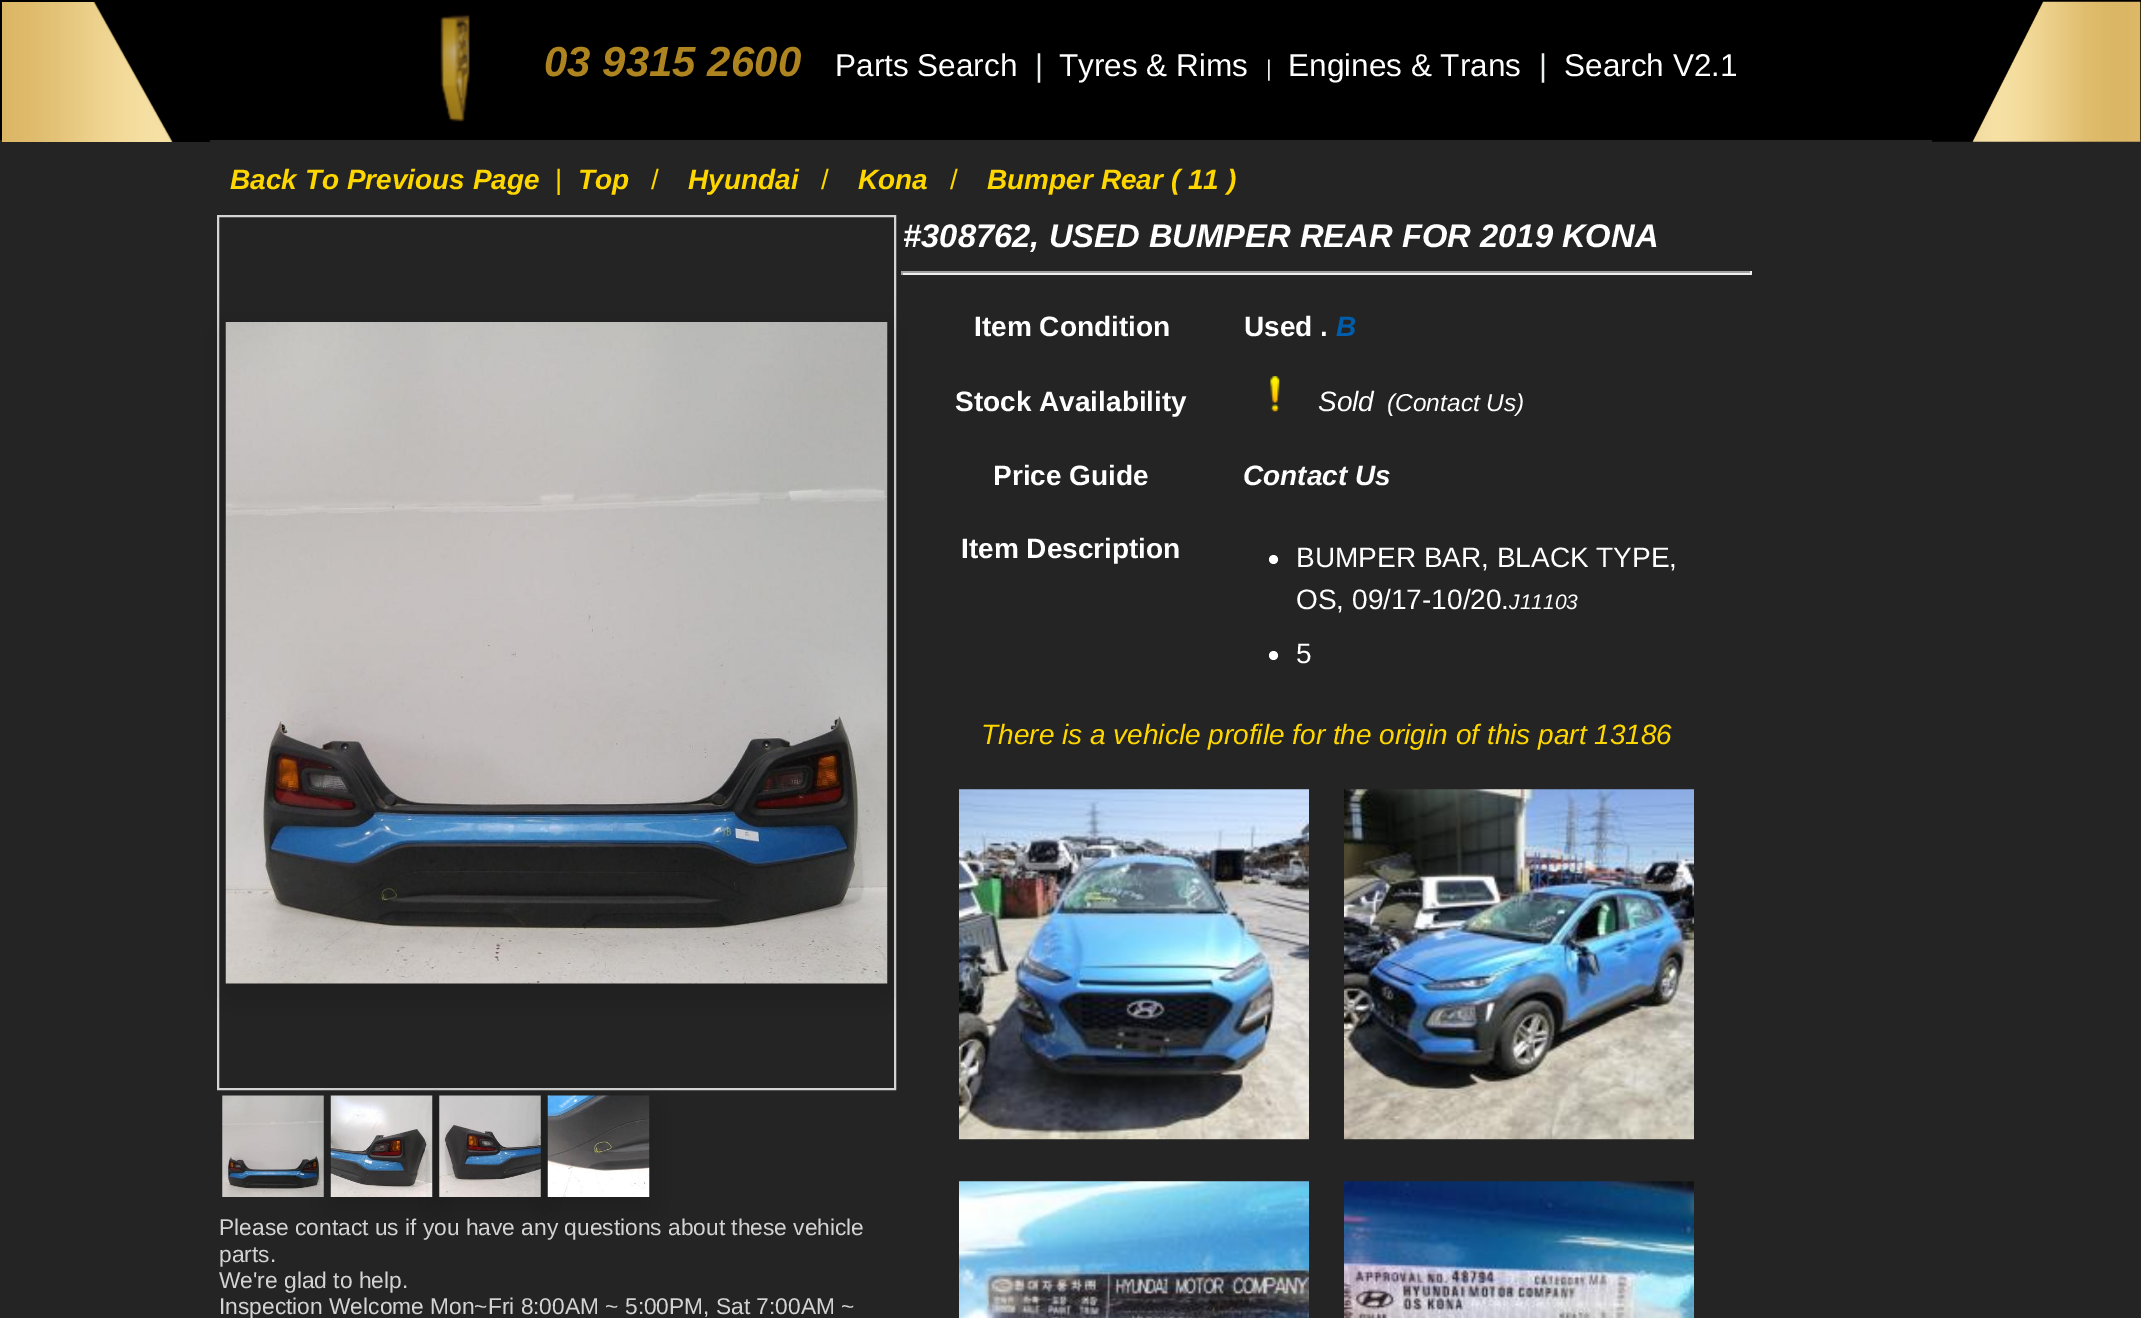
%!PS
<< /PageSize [2141 1318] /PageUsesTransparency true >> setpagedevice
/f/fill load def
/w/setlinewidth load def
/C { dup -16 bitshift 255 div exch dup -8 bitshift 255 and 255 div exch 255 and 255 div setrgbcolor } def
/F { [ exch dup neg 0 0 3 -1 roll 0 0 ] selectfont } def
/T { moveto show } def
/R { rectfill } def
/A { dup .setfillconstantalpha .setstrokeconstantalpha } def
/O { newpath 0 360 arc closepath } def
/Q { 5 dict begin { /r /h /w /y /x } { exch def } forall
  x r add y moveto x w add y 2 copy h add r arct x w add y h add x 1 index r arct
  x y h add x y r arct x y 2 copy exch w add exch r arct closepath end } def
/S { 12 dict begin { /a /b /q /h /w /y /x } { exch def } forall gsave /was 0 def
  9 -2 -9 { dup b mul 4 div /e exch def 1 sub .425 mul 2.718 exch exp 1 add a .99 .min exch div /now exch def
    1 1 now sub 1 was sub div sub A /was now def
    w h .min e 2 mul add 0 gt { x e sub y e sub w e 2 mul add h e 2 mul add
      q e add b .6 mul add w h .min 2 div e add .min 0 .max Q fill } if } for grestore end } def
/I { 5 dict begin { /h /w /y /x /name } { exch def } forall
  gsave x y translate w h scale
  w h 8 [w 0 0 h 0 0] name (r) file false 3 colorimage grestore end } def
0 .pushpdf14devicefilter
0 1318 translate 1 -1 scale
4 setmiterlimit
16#242424 C
0 0 2141 1318 R
16#000000 C
0 0 2141 140 R
(1.rgb) 2 2 209 140 I
(2.rgb) 440 14 30 108 I
/LiberationSans-BoldItalic 42 F
16#AD841F C
(03 9315 2600) 544 76 T
/LiberationSans-Regular 31.5 F
16#FFFFFF C
(Parts Search) 835 76 T
16#ECF0F1 C
(|) 1035 76 T
16#FFFFFF C
(Tyres & Rims) 1059 76 T
/LiberationSans-Regular 22.75 F
16#ECF0F1 C
(|) 1266 76 T
/LiberationSans-Regular 31.5 F
16#FFFFFF C
(Engines & Trans) 1288 76 T
16#ECF0F1 C
(|) 1539 76 T
16#FFFFFF C
(Search V2.1) 1564 76 T
(3.rgb) 1932 1 209 141 I
/LiberationSans-BoldItalic 28 F
16#FFD700 C
(Back To Previous Page) 230 189 T
/LiberationSans-Regular 28 F
(|) 555 189 T
/LiberationSans-BoldItalic 28 F
(Top) 578 189 T
/LiberationSans-Regular 28 F
(/) 651 189 T
/LiberationSans-BoldItalic 28 F
(Hyundai) 688 189 T
/LiberationSans-Regular 28 F
(/) 821 189 T
/LiberationSans-BoldItalic 28 F
(Kona) 858 189 T
/LiberationSans-Regular 28 F
(/) 950 189 T
/LiberationSans-BoldItalic 28 F
(Bumper Rear \( 11 \)) 987 189 T
/LiberationSans-BoldItalic 32.75 F
16#FFFFFF C
(#308762, USED BUMPER REAR FOR 2019 KONA) 903 247 T
16#9F9F9F C
901 271 851 2 R
16#EEEEEE C
1750 271 2 4 R
901 273 851 2 R
16#9F9F9F C
901 271 2 4 R
/LiberationSans-Bold 28 F
16#FFFFFF C
(Item Condition) 974 336 T
(Used .) 1244 336 T
/LiberationSans-BoldItalic 28 F
16#005DAB C
(B) 1336 336 T
/LiberationSans-Bold 28 F
16#FFFFFF C
(Stock Availability) 955 411 T
(4.rgb) 1270 376 10 36 I
/LiberationSans-Italic 28 F
(Sold) 1318 411 T
/LiberationSans-Italic 24.5 F
(\(Contact Us\)) 1387 411 T
/LiberationSans-Bold 28 F
(Price Guide) 993 485 T
/LiberationSans-BoldItalic 28 F
(Contact Us) 1243 485 T
/LiberationSans-Bold 28 F
(Item Description) 961 558 T
1273.5 559.5 4.5 O f
/LiberationSans-Regular 28 F
(BUMPER BAR, BLACK TYPE,) 1296 567 T
(OS, 09/17-10/20.) 1296 609 T
/LiberationSans-Italic 21 F
(J11103) 1509 609 T
1273.5 655.5 4.5 O f
/LiberationSans-Regular 28 F
(5) 1296 663 T
/LiberationSans-Italic 28 F
16#FFD700 C
(There is a vehicle profile for the origin of this part 13186) 981 744 T
(5.rgb) 959 789 350 351 I
(6.rgb) 1344 789 350 351 I
(7.rgb) 959 1181 350 137 I
(8.rgb) 1344 1181 350 137 I
16#D5D4D4 C
2 w
218 216 677 873 rectstroke
16#000000 C
226 333 661 661 0 17.5 .19 S
(9.rgb) 225 322 663 662 I
(10.rgb) 222 1095 102 102 I
331 1106 101 102 0 17.5 .19 S
(11.rgb) 330 1095 103 102 I
439 1106 102 102 0 17.5 .19 S
(12.rgb) 439 1095 102 102 I
548 1106 101 102 0 17.5 .19 S
(13.rgb) 547 1095 103 102 I
/LiberationSans-Regular 22.75 F
16#D3D3D3 C
(Please contact us if you have any questions about these vehicle) 219 1235 T
(parts.) 219 1262 T
(We're glad to help.) 219 1288 T
(Inspection Welcome Mon~Fri 8:00AM ~ 5:00PM, Sat 7:00AM ~) 219 1314 T
.poppdf14devicefilter showpage
